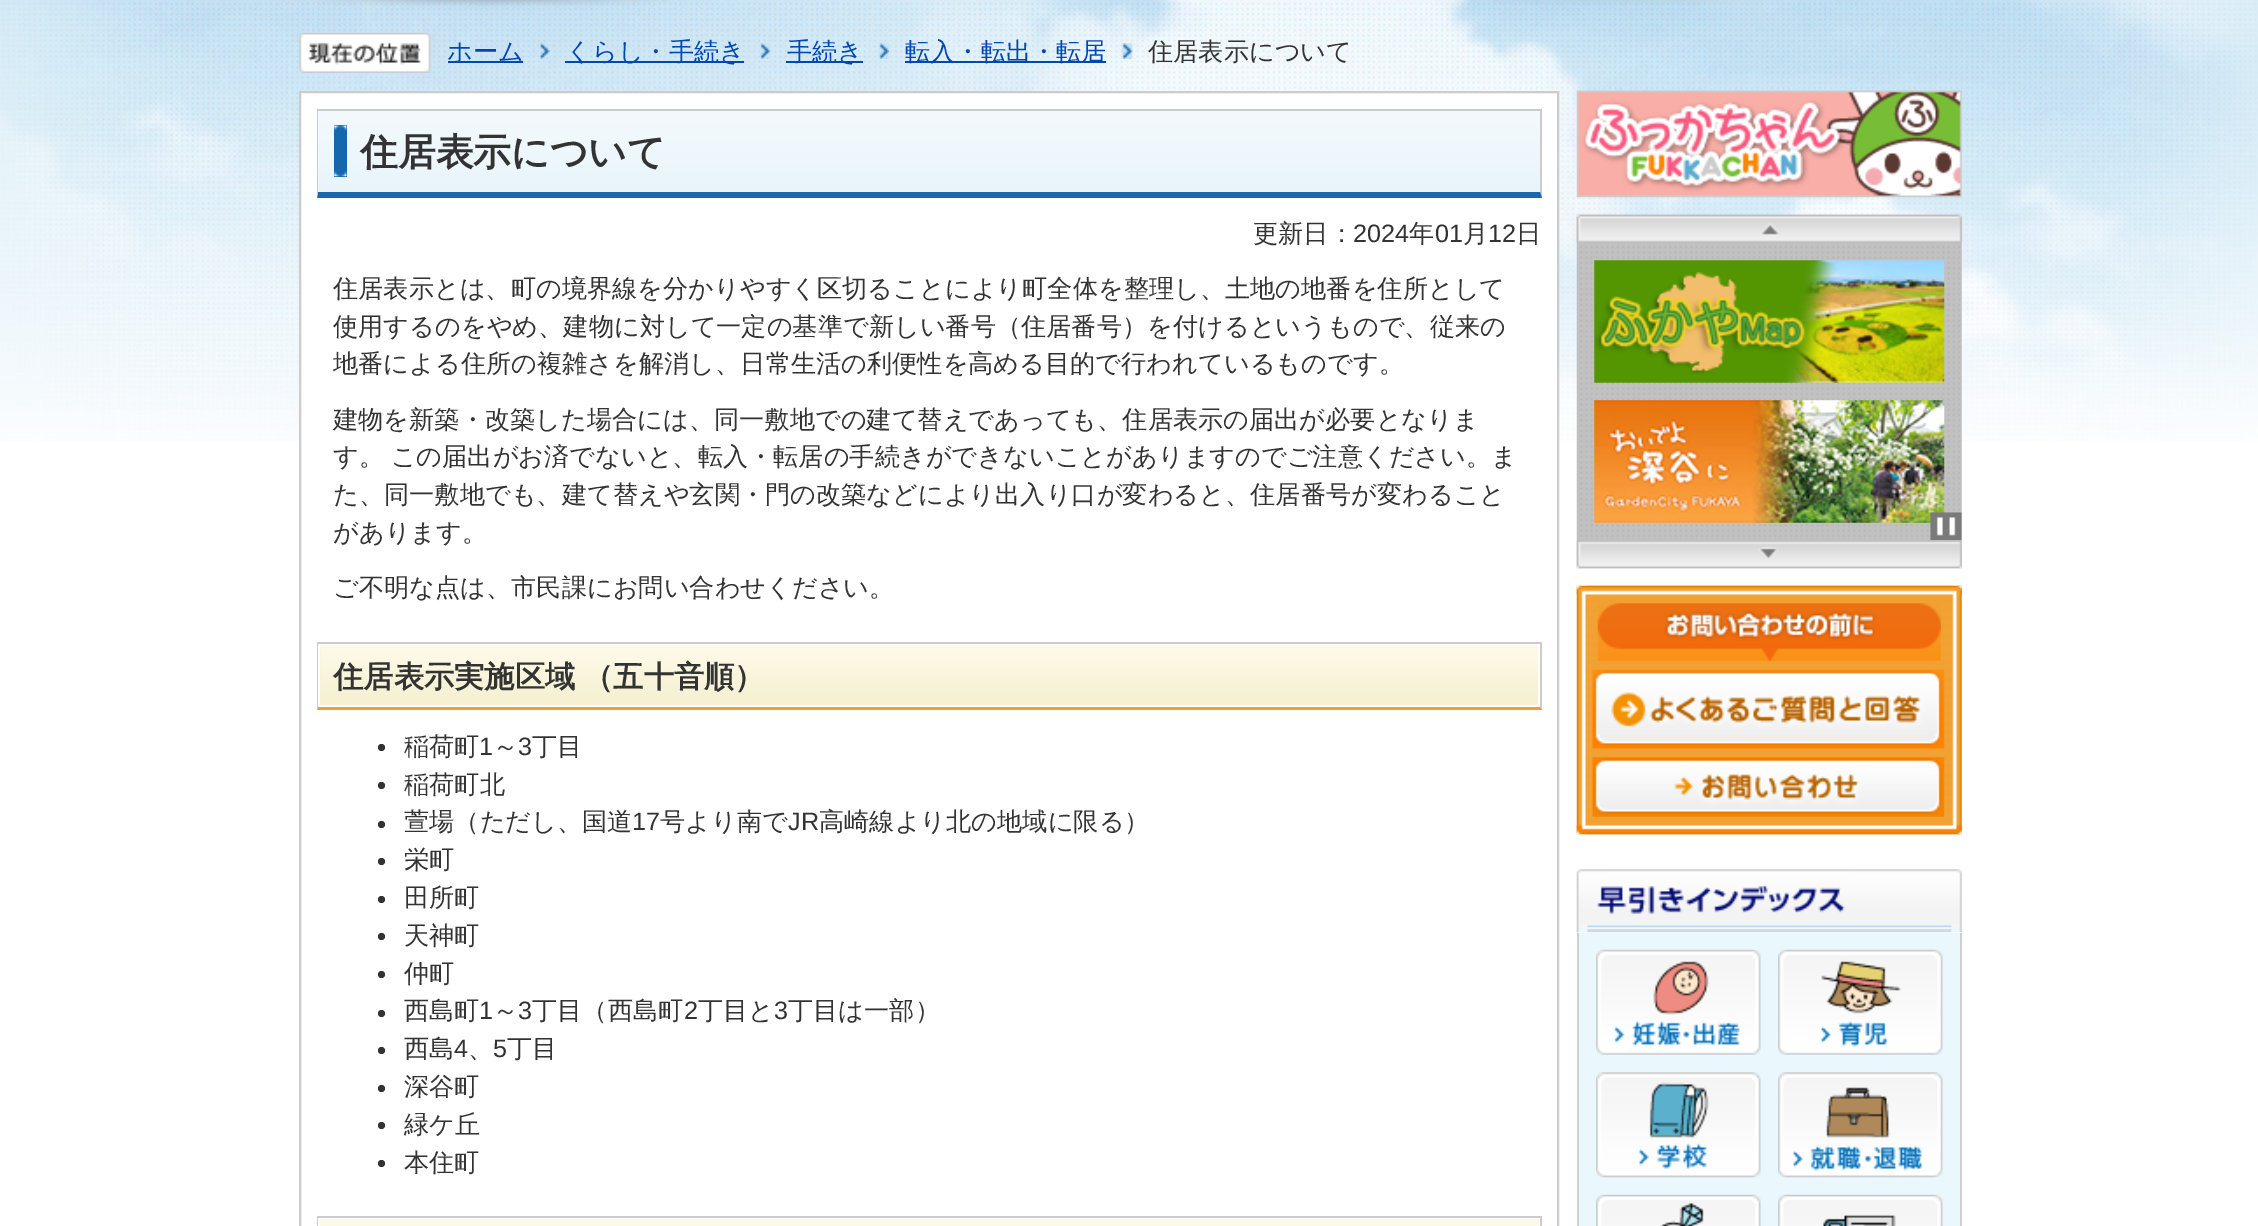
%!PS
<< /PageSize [2258 1226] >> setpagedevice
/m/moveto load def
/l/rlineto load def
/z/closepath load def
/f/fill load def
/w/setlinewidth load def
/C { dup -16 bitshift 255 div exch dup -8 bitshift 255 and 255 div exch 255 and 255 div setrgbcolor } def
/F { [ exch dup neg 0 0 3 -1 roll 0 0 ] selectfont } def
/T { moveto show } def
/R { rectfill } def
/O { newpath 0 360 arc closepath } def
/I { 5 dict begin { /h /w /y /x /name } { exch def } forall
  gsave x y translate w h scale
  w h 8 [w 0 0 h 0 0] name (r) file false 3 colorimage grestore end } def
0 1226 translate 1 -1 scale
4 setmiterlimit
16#FFFFFF C
0 0 2258 1226 R
(1.rgb) 0 0 2258 441 I
(2.rgb) 299 32 132 41 I
16#0047B2 C
448 61 75 2 R
/WenQuanYiZenHei-Medium 25.2 F
(ホーム) 447 60 T
(3.rgb) 539 43 11 16 I
565 61 179 2 R
(くらし・手続き) 566 60 T
(4.rgb) 759 43 11 16 I
786 61 77 2 R
(手続き) 787 60 T
(5.rgb) 878 43 11 16 I
905 61 201 2 R
(転入・転出・転居) 905 60 T
(6.rgb) 1121 43 12 16 I
16#333333 C
(住居表示について) 1148 60 T
16#FFFFFF C
301 93 1256 348 R
16#CCCCCC C
2 w
300 92 1258 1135 rectstroke
(7.rgb) 316 110 1226 88 I
317 109 1225 2 R
1542 108 m 0 90 l -2 -6 l 0 -82 l z f
16#1968AD C
1542 198 m -1225 0 l 1 -6 l 1222 0 l z f
16#CCCCCC C
317 198 m 0 -90 l 1 2 l 0 82 l z f
16#1667AC C
334 125 13 52 R
(8.rgb) 334 125 13 52 I
/WenQuanYiZenHei-Bold 37.75 F
16#333333 C
(住居表示について) 360 165 T
/WenQuanYiZenHei-Medium 25.2 F
(更新日：) 1253 242 T
/LiberationSans-Regular 25.2 F
(2024) 1353 242 T
/WenQuanYiZenHei-Medium 25.2 F
(年) 1409 242 T
/LiberationSans-Regular 25.2 F
(01) 1435 242 T
/WenQuanYiZenHei-Medium 25.2 F
(月) 1463 242 T
/LiberationSans-Regular 25.2 F
(12) 1488 242 T
/WenQuanYiZenHei-Medium 25.2 F
(日) 1516 242 T
(住居表示とは、町の境界線を分かりやすく区切ることにより町全体を整理し、土地の地番を住所として) 333 297 T
(使用するのをやめ、建物に対して一定の基準で新しい番号（住居番号）を付けるというもので、従来の) 333 335 T
(地番による住所の複雑さを解消し、日常生活の利便性を高める目的で行われているものです。) 333 372 T
(建物を新築・改築した場合には、同一敷地での建て替えであっても、住居表示の届出が必要となりま) 333 428 T
333 465 m -1 0 32 (す。 この届出がお済でないと、転入・転居の手続きができないことがありますのでご注意ください。ま) widthshow
(た、同一敷地でも、建て替えや玄関・門の改築などにより出入り口が変わると、住居番号が変わること) 333 503 T
(があります。) 333 541 T
(ご不明な点は、市民課にお問い合わせください。) 333 596 T
16#CCCCCC C
317 642 1225 2 R
1542 642 m 0 68 l -2 -3 l 0 -63 l z f
16#F29F2F C
1542 710 m -1225 0 l 1 -3 l 1222 0 l z f
16#CCCCCC C
317 710 m 0 -68 l 1 2 l 0 63 l z f
16#F5F1D2 C
320 646 1218 59 R
(9.rgb) 320 645 1219 55 I
/WenQuanYiZenHei-Bold 30.25 F
16#333333 C
333 687 m -1 0 32 (住居表示実施区域 （五十音順）) widthshow
381.5 747.5 3.5 O f
/WenQuanYiZenHei-Medium 25.2 F
(稲荷町) 404 755 T
/LiberationSans-Regular 25.2 F
(1) 479 755 T
/WenQuanYiZenHei-Medium 25.2 F
(～) 493 755 T
/LiberationSans-Regular 25.2 F
(3) 518 755 T
/WenQuanYiZenHei-Medium 25.2 F
(丁目) 532 755 T
381.5 785.5 3.5 O f
(稲荷町北) 404 793 T
381.5 824.5 3.5 O f
(萱場（ただし、国道) 404 830 T
/LiberationSans-Regular 25.2 F
(17) 632 830 T
/WenQuanYiZenHei-Medium 25.2 F
(号より南で) 660 830 T
/LiberationSans-Regular 25.2 F
(JR) 788 830 T
/WenQuanYiZenHei-Medium 25.2 F
(高崎線より北の地域に限る）) 819 830 T
381.5 861.5 3.5 O f
(栄町) 404 868 T
381.5 899.5 3.5 O f
(田所町) 404 906 T
381.5 936.5 3.5 O f
(天神町) 404 944 T
381.5 974.5 3.5 O f
(仲町) 404 982 T
381.5 1013.5 3.5 O f
(西島町) 404 1019 T
/LiberationSans-Regular 25.2 F
(1) 479 1019 T
/WenQuanYiZenHei-Medium 25.2 F
(～) 493 1019 T
/LiberationSans-Regular 25.2 F
(3) 518 1019 T
/WenQuanYiZenHei-Medium 25.2 F
(丁目（西島町) 532 1019 T
/LiberationSans-Regular 25.2 F
(2) 684 1019 T
/WenQuanYiZenHei-Medium 25.2 F
(丁目と) 698 1019 T
/LiberationSans-Regular 25.2 F
(3) 774 1019 T
/WenQuanYiZenHei-Medium 25.2 F
(丁目は一部）) 788 1019 T
381.5 1050.5 3.5 O f
(西島) 404 1057 T
/LiberationSans-Regular 25.2 F
(4) 454 1057 T
(5) 493 1057 T
/WenQuanYiZenHei-Medium 25.2 F
(丁目) 507 1057 T
(、) 468 1057 T
381.5 1088.5 3.5 O f
(深谷町) 404 1095 T
381.5 1125.5 3.5 O f
(緑ケ丘) 404 1133 T
381.5 1163.5 3.5 O f
(本住町) 404 1171 T
16#CCCCCC C
317 1216 1225 2 R
1542 1216 m 0 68 l -2 -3 l 0 -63 l z f
317 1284 m 0 -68 l 1 2 l 0 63 l z f
16#FDF9E8 C
320 1219 1219 7 R
(10.rgb) 1576 90 386 108 I
(11.rgb) 1576 214 386 355 I
(12.rgb) 1576 214 386 29 I
(13.rgb) 1594 260 351 123 I
(14.rgb) 1594 400 351 123 I
(15.rgb) 1930 512 32 28 I
(16.rgb) 1576 540 386 29 I
(17.rgb) 1576 585 386 250 I
(18.rgb) 1576 585 386 10 I
(19.rgb) 1576 825 386 10 I
(20.rgb) 1597 603 344 58 I
(21.rgb) 1592 669 353 80 I
(22.rgb) 1592 757 353 60 I
(23.rgb) 1576 869 386 64 I
16#EAF7FD C
1579 933 381 293 R
16#CFCFCF C
1960 933 2 293 R
1577 933 2 293 R
(24.rgb) 1596 949 165 106 I
(25.rgb) 1778 949 165 106 I
(26.rgb) 1596 1072 165 106 I
(27.rgb) 1778 1072 165 106 I
(28.rgb) 1596 1194 165 32 I
(29.rgb) 1778 1194 165 32 I
showpage
